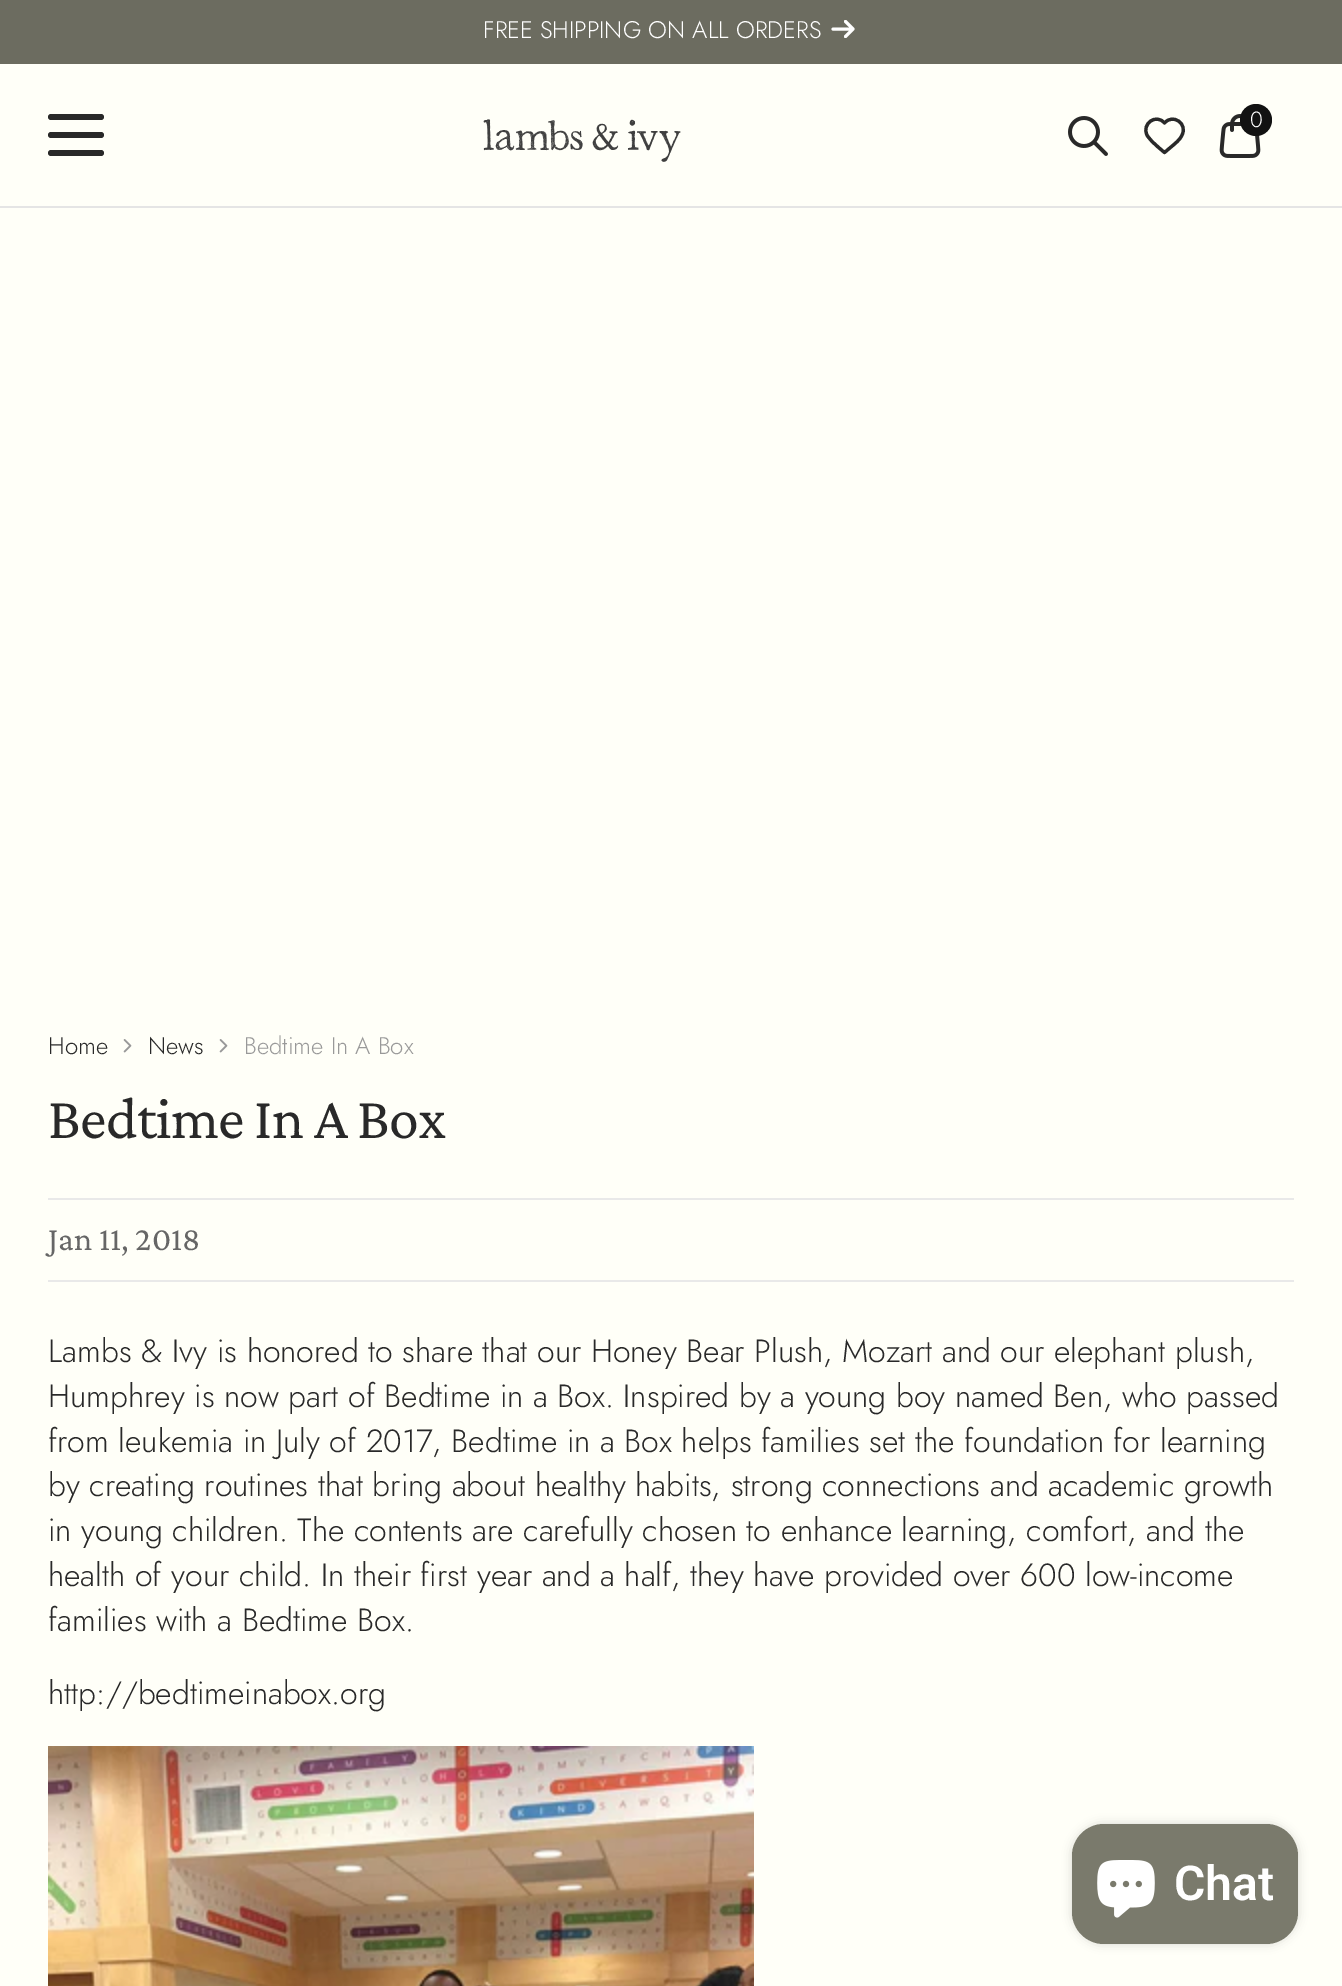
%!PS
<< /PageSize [1342 1986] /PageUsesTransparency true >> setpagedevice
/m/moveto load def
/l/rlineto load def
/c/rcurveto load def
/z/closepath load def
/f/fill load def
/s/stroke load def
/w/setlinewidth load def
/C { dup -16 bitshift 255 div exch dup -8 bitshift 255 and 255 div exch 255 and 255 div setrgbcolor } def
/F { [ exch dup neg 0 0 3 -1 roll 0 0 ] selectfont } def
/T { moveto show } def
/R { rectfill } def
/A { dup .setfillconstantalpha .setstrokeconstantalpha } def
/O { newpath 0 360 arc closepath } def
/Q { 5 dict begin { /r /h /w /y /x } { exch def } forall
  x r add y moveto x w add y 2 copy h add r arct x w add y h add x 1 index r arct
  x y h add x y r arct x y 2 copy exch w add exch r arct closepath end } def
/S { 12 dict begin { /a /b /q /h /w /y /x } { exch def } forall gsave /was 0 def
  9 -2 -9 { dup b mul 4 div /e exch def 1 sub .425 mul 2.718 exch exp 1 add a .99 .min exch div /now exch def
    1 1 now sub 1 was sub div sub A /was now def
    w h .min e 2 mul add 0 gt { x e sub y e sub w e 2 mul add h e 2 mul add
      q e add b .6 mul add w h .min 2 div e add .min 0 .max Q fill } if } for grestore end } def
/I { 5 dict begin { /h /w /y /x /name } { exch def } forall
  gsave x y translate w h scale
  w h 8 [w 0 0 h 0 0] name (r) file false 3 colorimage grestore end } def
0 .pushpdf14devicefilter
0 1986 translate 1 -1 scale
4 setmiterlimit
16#FFFFF8 C
0 0 1342 1986 R
16#6C6C60 C
0 0 1342 64 R
/Jost-Light 24 F
16#FFFFFF C
(FREE SHIPPING ON ALL ORDERS) 483 38 T
3 w
1 setlinecap
1 setlinejoin
833 29 m 20 0 l 853 29 m -7.5 -7.5 l 853 29 m -7.5 7.5 l s
16#E5E5E5 C
0 206 1342 2 R
16#292929 C
48 114 56 6 3 Q f
48 132 56 6 3 Q f
48 150 56 6 3 Q f
(1.rgb) 483 119 198 43 I
(2.rgb) 1068 116 40 40 I
3.2 w
1164.5 123 m -8.5 -10 -23 1 -17.5 12 c 2.5 5 7.5 8.5 11 12 c 6.5 5.5 l 6.5 -5.5 l 4 -3.5 9 -7 11 -12 c 6 -11 -9 -22 -17.5 -12 c z s
(3.rgb) 1219 114 42 44 I
16#121212 C
1256 120 16 O f
/Jost-Light 22 F
16#FFFFFF C
(0) 1250 127 T
/Jost-Light 24 F
16#292929 C
(Home) 48 1054 T
(4.rgb) 123 1039 9 14 I
(News) 148 1054 T
(4.rgb) 219 1039 9 14 I
16#999999 C
(Bedtime In A Box) 244 1054 T
/CrimsonPro-Regular 60 F
16#292929 C
48 1138 m -.75 0 (Bedtime In A Box) ashow
16#E9E9E9 C
48 1198 1246 2 R
48 1280 1246 2 R
/CrimsonPro-Regular 34 F
16#666666 C
(Jan 11, 2018) 48 1250 T
/Jost-Light 32 F
16#292929 C
(Lambs & Ivy is honored to share that our Honey Bear Plush, Mozart and our elephant plush,) 48 1362 T
(Humphrey is now part of Bedtime in a Box. Inspired by a young boy named Ben, who passed) 48 1407 T
(from leukemia in July of 2017, Bedtime in a Box helps families set the foundation for learning) 48 1452 T
(by creating routines that bring about healthy habits, strong connections and academic growth) 48 1496 T
(in young children. The contents are carefully chosen to enhance learning, comfort, and the) 48 1541 T
(health of your child. In their first year and a half, they have provided over 600 low-income) 48 1586 T
(families with a Bedtime Box.) 48 1631 T
(http://bedtimeinabox.org) 48 1704 T
(5.rgb) 48 1746 706 240 I
16#000000 C
1072 1824 226 120 32 5 .15 S
16#7A7A6C C
1072 1824 226 120 32 Q f
(6.rgb) 1097 1860 58 58 I
/Roboto-SemiBold 48 F
16#FFFFFF C
(Chat) 1174 1900 T
.poppdf14devicefilter showpage
